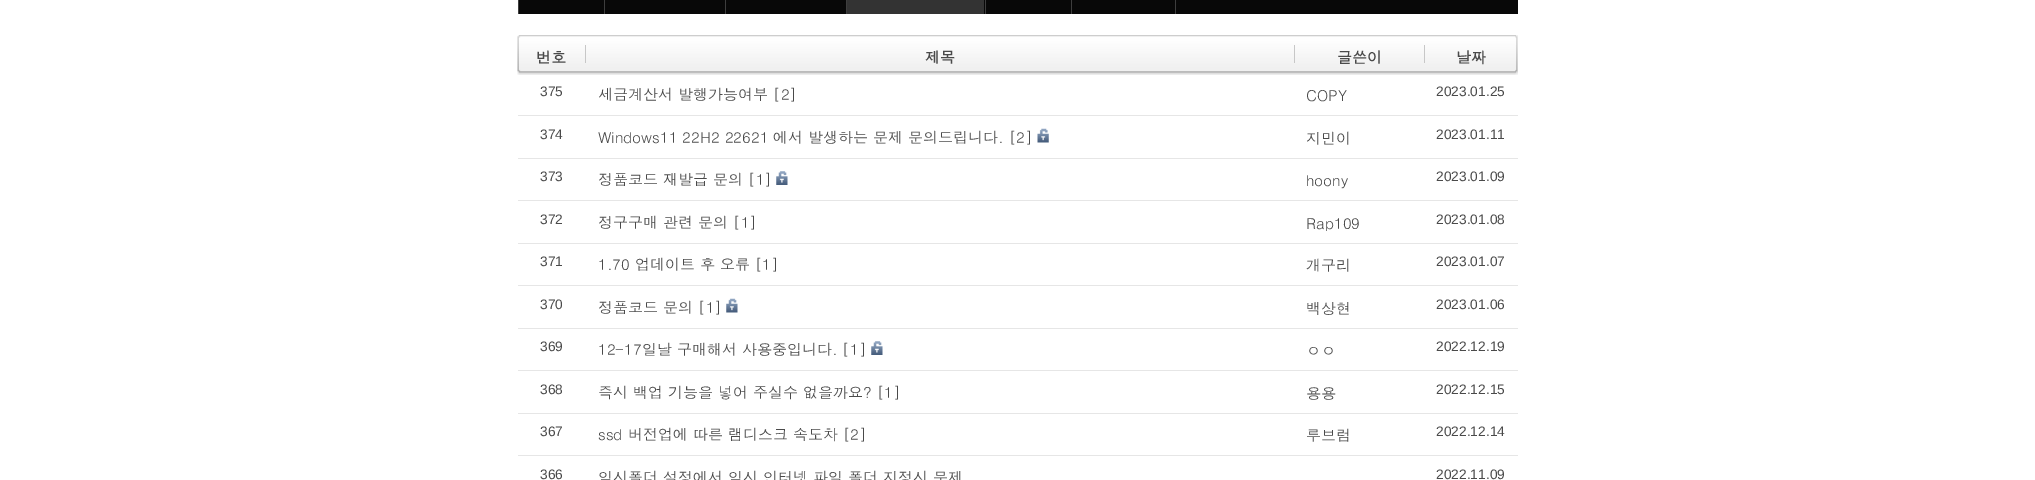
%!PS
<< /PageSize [2035 480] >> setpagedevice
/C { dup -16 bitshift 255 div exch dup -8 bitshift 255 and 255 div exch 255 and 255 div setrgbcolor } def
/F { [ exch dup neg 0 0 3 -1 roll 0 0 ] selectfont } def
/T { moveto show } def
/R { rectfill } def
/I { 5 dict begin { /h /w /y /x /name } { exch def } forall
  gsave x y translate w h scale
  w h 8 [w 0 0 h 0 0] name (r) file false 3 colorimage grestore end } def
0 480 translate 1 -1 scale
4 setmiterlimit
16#FFFFFF C
0 0 2035 480 R
16#080808 C
519 0 999 14 R
16#3E3E3E C
604 0 1 14 R
518 0 1 14 R
725 0 1 14 R
16#333333 C
847 0 137 14 R
16#3E3E3E C
985 0 1 14 R
846 0 1 14 R
1071 0 1 14 R
1175 0 1 14 R
(1.rgb) 517 35 1001 40 I
(2.rgb) 1515 35 3 40 I
/Dotum-Bold 15 F
16#4A4A4A C
(번호) 536 63 T
16#C7C7C7 C
585 45 1 18 R
16#4A4A4A C
(제목) 925 63 T
16#C7C7C7 C
1294 45 1 18 R
16#4A4A4A C
(글쓴이) 1337 63 T
16#C7C7C7 C
1424 45 1 18 R
16#4A4A4A C
(날짜) 1456 63 T
16#E6E6E6 C
518 115 1000 1 R
/LiberationSans-Regular 13.75 F
16#4A4A4A C
(375) 540 96 T
/Dotum-Regular 15 F
(세금계산서 발행가능여부 [2]) 598 100 T
(COPY) 1306 101 T
/LiberationSans-Regular 13.75 F
(2023.01.25) 1436 96 T
16#E6E6E6 C
518 158 1000 1 R
16#4A4A4A C
(374) 540 139 T
/Dotum-Regular 15 F
(Windows11 22H2 22621 에서 발생하는 문제 문의드립니다. [2]) 598 143 T
(3.rgb) 1037 128 12 15 I
(지민이) 1306 144 T
/LiberationSans-Regular 13.75 F
(2023.01.11) 1436 139 T
16#E6E6E6 C
518 200 1000 1 R
16#4A4A4A C
(373) 540 181 T
/Dotum-Regular 15 F
(정품코드 재발급 문의 [1]) 598 185 T
(4.rgb) 776 171 12 14 I
(hoony) 1306 186 T
/LiberationSans-Regular 13.75 F
(2023.01.09) 1436 181 T
16#E6E6E6 C
518 243 1000 1 R
16#4A4A4A C
(372) 540 224 T
/Dotum-Regular 15 F
(정구구매 관련 문의 [1]) 598 228 T
(Rap109) 1306 229 T
/LiberationSans-Regular 13.75 F
(2023.01.08) 1436 224 T
16#E6E6E6 C
518 285 1000 1 R
16#4A4A4A C
(371) 540 266 T
/Dotum-Regular 15 F
(1.70 업데이트 후 오류 [1]) 598 270 T
(개구리) 1306 271 T
/LiberationSans-Regular 13.75 F
(2023.01.07) 1436 266 T
16#E6E6E6 C
518 328 1000 1 R
16#4A4A4A C
(370) 540 309 T
/Dotum-Regular 15 F
(정품코드 문의 [1]) 598 313 T
(5.rgb) 726 298 12 15 I
(백상현) 1306 314 T
/LiberationSans-Regular 13.75 F
(2023.01.06) 1436 309 T
16#E6E6E6 C
518 370 1000 1 R
16#4A4A4A C
(369) 540 351 T
/Dotum-Regular 15 F
(12-17일날 구매해서 사용중입니다. [1]) 598 355 T
(6.rgb) 871 341 12 14 I
(ㅇㅇ) 1306 356 T
/LiberationSans-Regular 13.75 F
(2022.12.19) 1436 351 T
16#E6E6E6 C
518 413 1000 1 R
16#4A4A4A C
(368) 540 394 T
/Dotum-Regular 15 F
(즉시 백업 기능을 넣어 주실수 없을까요? [1]) 598 398 T
(용용) 1306 399 T
/LiberationSans-Regular 13.75 F
(2022.12.15) 1436 394 T
16#E6E6E6 C
518 455 1000 1 R
16#4A4A4A C
(367) 540 436 T
/Dotum-Regular 15 F
(ssd 버전업에 따른 램디스크 속도차 [2]) 598 440 T
(루브럼) 1306 441 T
/LiberationSans-Regular 13.75 F
(2022.12.14) 1436 436 T
(366) 540 479 T
/Dotum-Regular 15 F
(임시폴더 설정에서 임시 인터넷 파일 폴더 지정시 문제) 598 483 T
/LiberationSans-Regular 13.75 F
(2022.11.09) 1436 479 T
showpage
